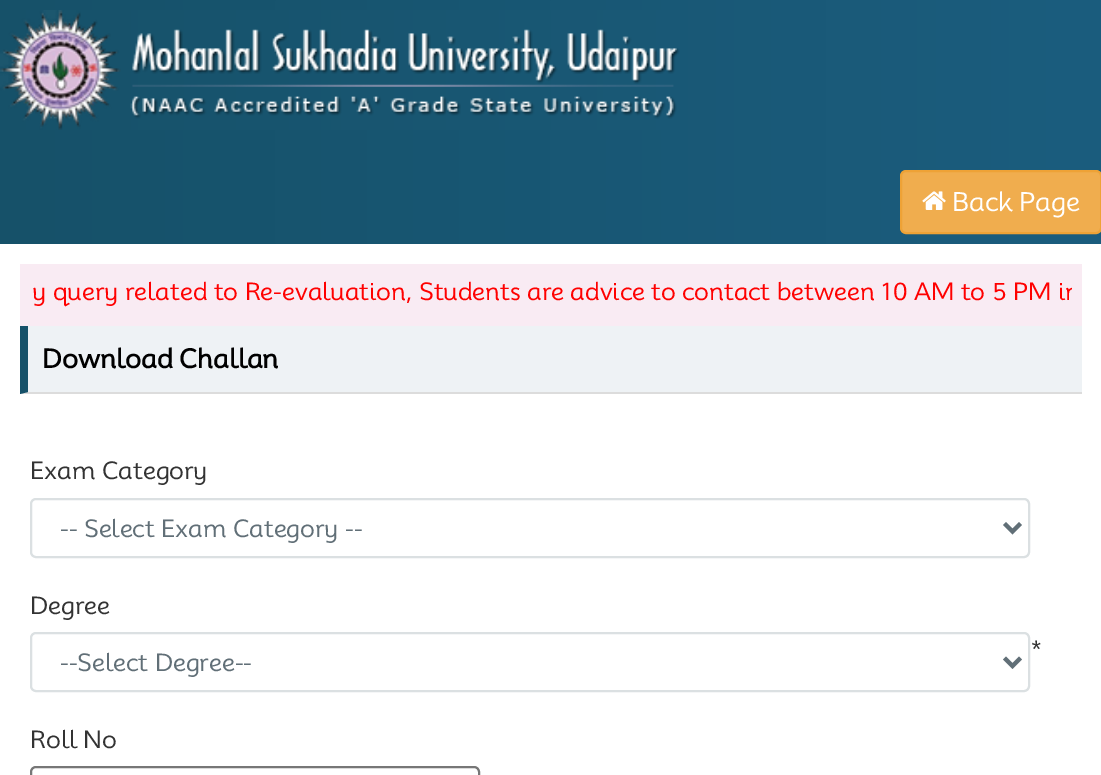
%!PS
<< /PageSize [1101 775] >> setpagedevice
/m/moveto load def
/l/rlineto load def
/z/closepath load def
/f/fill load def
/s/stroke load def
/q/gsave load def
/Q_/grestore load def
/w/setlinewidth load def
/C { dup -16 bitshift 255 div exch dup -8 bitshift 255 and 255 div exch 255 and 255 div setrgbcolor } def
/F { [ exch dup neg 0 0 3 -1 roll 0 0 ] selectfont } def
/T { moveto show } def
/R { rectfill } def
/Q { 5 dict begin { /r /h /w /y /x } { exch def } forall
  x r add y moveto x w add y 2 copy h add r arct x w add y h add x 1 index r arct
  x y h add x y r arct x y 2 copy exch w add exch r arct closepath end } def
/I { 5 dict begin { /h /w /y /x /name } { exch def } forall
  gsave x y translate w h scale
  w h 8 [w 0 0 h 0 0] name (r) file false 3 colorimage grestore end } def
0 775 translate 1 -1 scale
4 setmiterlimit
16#FFFFFF C
0 0 1101 775 R
q 0 0 m 1101 0 l 0 244 l -1101 0 l z clip newpath
<< /ShadingType 2 /ColorSpace /DeviceRGB /Coords [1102 122 0 122] /Extend [true true] /Function << /FunctionType 2 /Domain [0 1] /C0 [.106 .365 .494] /C1 [.086 .318 .412] /N 1 >> >> shfill Q_
(1.rgb) 0 10 680 120 I
16#F0AD4E C
901 171 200 62 5 Q q f Q_
16#EEA236 C
2 w
s
(2.rgb) 922 191 24 19 I
/Mooli-Regular 26 F
16#FFFFFF C
(Back Page) 952 211 T
16#F9EBF3 C
20 264 1062 62 R
q
30 274 1042 34 rectclip
/Mooli-Regular 24 F
16#FF0000 C
(y query related to Re-evaluation, Students are advice to contact between 10 AM to 5 PM in) 32 300 T
Q_
16#EEF2F5 C
20 326 1062 68 R
16#DCDCDC C
1082 394 m -1062 0 l 8 -2 l 1054 0 l z f
16#165169 C
20 394 m 0 -68 l 8 0 l 0 66 l z f
/Mooli-Bold 26 F
16#000000 C
(Download Challan) 42 368 T
/Mooli-Regular 24 F
16#333333 C
(Exam Category) 30 479 T
16#DBE0E2 C
31 499 998 58 5 Q s
16#616F77 C
4 w
1004.5 523.5 m 8 8 l 8 -8 l s
(-- Select Exam Category --) 60 537 T
16#333333 C
(Degree) 30 614 T
(*) 1030 658 T
16#DBE0E2 C
2 w
31 633 998 58 5 Q s
16#616F77 C
4 w
1004.5 658 m 8 8 l 8 -8 l s
(--Select Degree--) 60 671 T
16#333333 C
(Roll No) 30 748 T
16#777777 C
2 w
31 767 448 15 5 Q s
showpage
